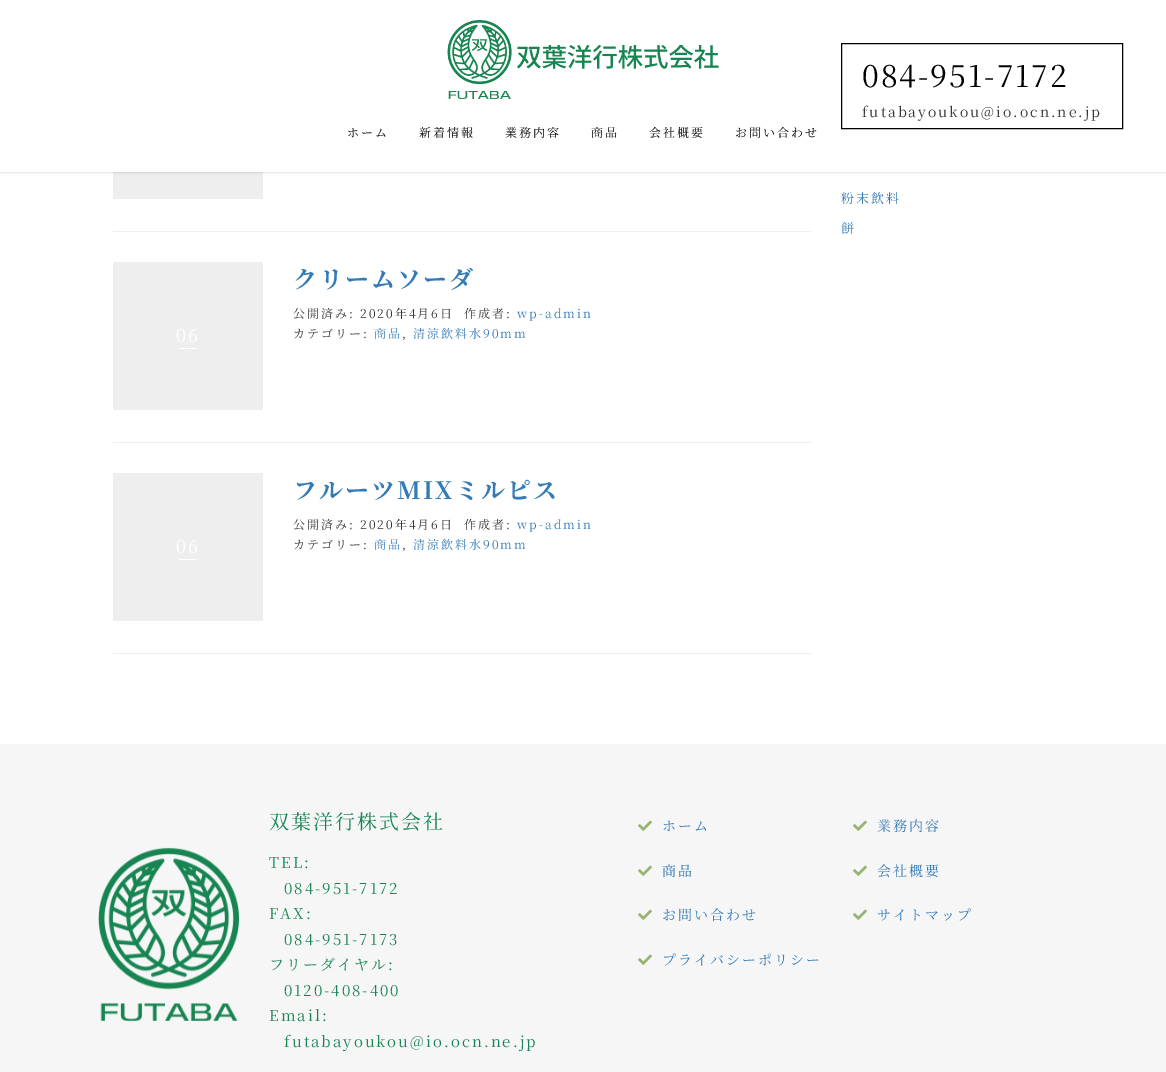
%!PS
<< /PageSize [1166 1072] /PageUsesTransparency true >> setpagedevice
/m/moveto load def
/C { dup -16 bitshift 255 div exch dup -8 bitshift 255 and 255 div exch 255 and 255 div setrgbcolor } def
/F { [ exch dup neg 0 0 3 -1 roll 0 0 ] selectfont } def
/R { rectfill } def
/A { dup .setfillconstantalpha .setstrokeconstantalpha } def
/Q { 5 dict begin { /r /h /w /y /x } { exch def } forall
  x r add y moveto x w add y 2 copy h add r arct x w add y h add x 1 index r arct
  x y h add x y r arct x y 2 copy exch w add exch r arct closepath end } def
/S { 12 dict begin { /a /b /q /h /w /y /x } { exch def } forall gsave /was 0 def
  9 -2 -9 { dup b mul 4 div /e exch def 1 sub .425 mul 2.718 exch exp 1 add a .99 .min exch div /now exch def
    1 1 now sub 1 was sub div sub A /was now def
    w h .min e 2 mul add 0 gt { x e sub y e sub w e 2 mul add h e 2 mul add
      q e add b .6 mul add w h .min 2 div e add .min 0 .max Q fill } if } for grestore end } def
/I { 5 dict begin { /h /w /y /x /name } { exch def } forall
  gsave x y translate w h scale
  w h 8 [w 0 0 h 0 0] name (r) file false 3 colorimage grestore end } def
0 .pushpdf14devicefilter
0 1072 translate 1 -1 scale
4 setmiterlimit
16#FFFFFF C
0 0 1166 1072 R
16#EEEEEE C
113 172 150 27 R
16#000000 C
0 0 1166 172 0 1.5 .2 S
16#FFFFFF C
0 0 1166 172 R
16#000000 C
841.5 43.5 281 85 rectstroke
/NotoSerifJP-Regular 30 F
862 87 m 2 0 (084-951-7172) ashow
/NotoSerifJP-Regular 14 F
16#333333 C
862 117 m 2 0 (futabayoukou@io.ocn.ne.jp) ashow
(1.rgb) 447 20 272 79 I
/NotoSerifJP-Regular 12 F
16#000000 C
347 137 m 2 0 (ホーム) ashow
419 137 m 2 0 (新着情報) ashow
505 137 m 2 0 (業務内容) ashow
591 137 m 2 0 (商品) ashow
649 137 m 2 0 (会社概要) ashow
735 137 m 2 0 (お問い合わせ) ashow
/NotoSerifJP-Regular 13 F
16#337AB7 C
841 203 m 2 0 (粉末飲料) ashow
841 233 m 2 0 (餅) ashow
16#EEEEEE C
113 231 698 1 R
113 442 698 1 R
113 262 150 148 R
/NotoSerifJP-Regular 18 F
16#FFFFFF C
176 342 m 2 0 (06) ashow
179 348 18 1 R
/NotoSerifJP-Bold 24 F
16#337AB7 C
293 288 m 2 0 (クリームソーダ) ashow
/NotoSerifJP-Regular 12 F
16#333333 C
293 318 m 2 0 (公開済み: 2020年4月6日) ashow
464 318 m 2 0 (作成者:) ashow
16#337AB7 C
517 318 m 2 0 (wp-admin) ashow
16#333333 C
293 338 m 2 0 (カテゴリー:) ashow
16#337AB7 C
374 338 m 2 0 (商品) ashow
16#333333 C
402 338 m 2 0 (,) ashow
16#337AB7 C
413 338 m 2 0 (清涼飲料水90mm) ashow
16#EEEEEE C
113 653 698 1 R
113 473 150 148 R
/NotoSerifJP-Regular 18 F
16#FFFFFF C
176 553 m 2 0 (06) ashow
179 559 18 1 R
/NotoSerifJP-Bold 24 F
16#337AB7 C
293 499 m 2 0 (フルーツMIXミルピス) ashow
/NotoSerifJP-Regular 12 F
16#333333 C
293 529 m 2 0 (公開済み: 2020年4月6日) ashow
464 529 m 2 0 (作成者:) ashow
16#337AB7 C
517 529 m 2 0 (wp-admin) ashow
16#333333 C
293 549 m 2 0 (カテゴリー:) ashow
16#337AB7 C
374 549 m 2 0 (商品) ashow
16#333333 C
402 549 m 2 0 (,) ashow
16#337AB7 C
413 549 m 2 0 (清涼飲料水90mm) ashow
16#F7F6F6 C
0 744 1166 328 R
(2.rgb) 98 847 141 174 I
/NotoSerifJP-Regular 20 F
16#168551 C
269 829 m 2 0 (双葉洋行株式会社) ashow
/NotoSerifJP-Regular 15 F
269 868 m 2 0 (TEL:) ashow
284 894 m 2 0 (084-951-7172) ashow
269 919 m 2 0 (FAX:) ashow
284 945 m 2 0 (084-951-7173) ashow
269 970 m 2 0 (フリーダイヤル:) ashow
284 996 m 2 0 (0120-408-400) ashow
269 1021 m 2 0 (Email:) ashow
284 1047 m 2 0 (futabayoukou@io.ocn.ne.jp) ashow
(3.rgb) 638 820 14 11 I
/NotoSerifJP-Regular 14 F
16#337AB7 C
662 831 m 2 0 (ホーム) ashow
(3.rgb) 853 820 14 11 I
877 831 m 2 0 (業務内容) ashow
(3.rgb) 638 865 14 11 I
662 876 m 2 0 (商品) ashow
(3.rgb) 853 865 14 11 I
877 876 m 2 0 (会社概要) ashow
(3.rgb) 638 909 14 11 I
662 920 m 2 0 (お問い合わせ) ashow
(3.rgb) 853 909 14 11 I
877 920 m 2 0 (サイトマップ) ashow
(3.rgb) 638 954 14 11 I
662 965 m 2 0 (プライバシーポリシー) ashow
.poppdf14devicefilter showpage
